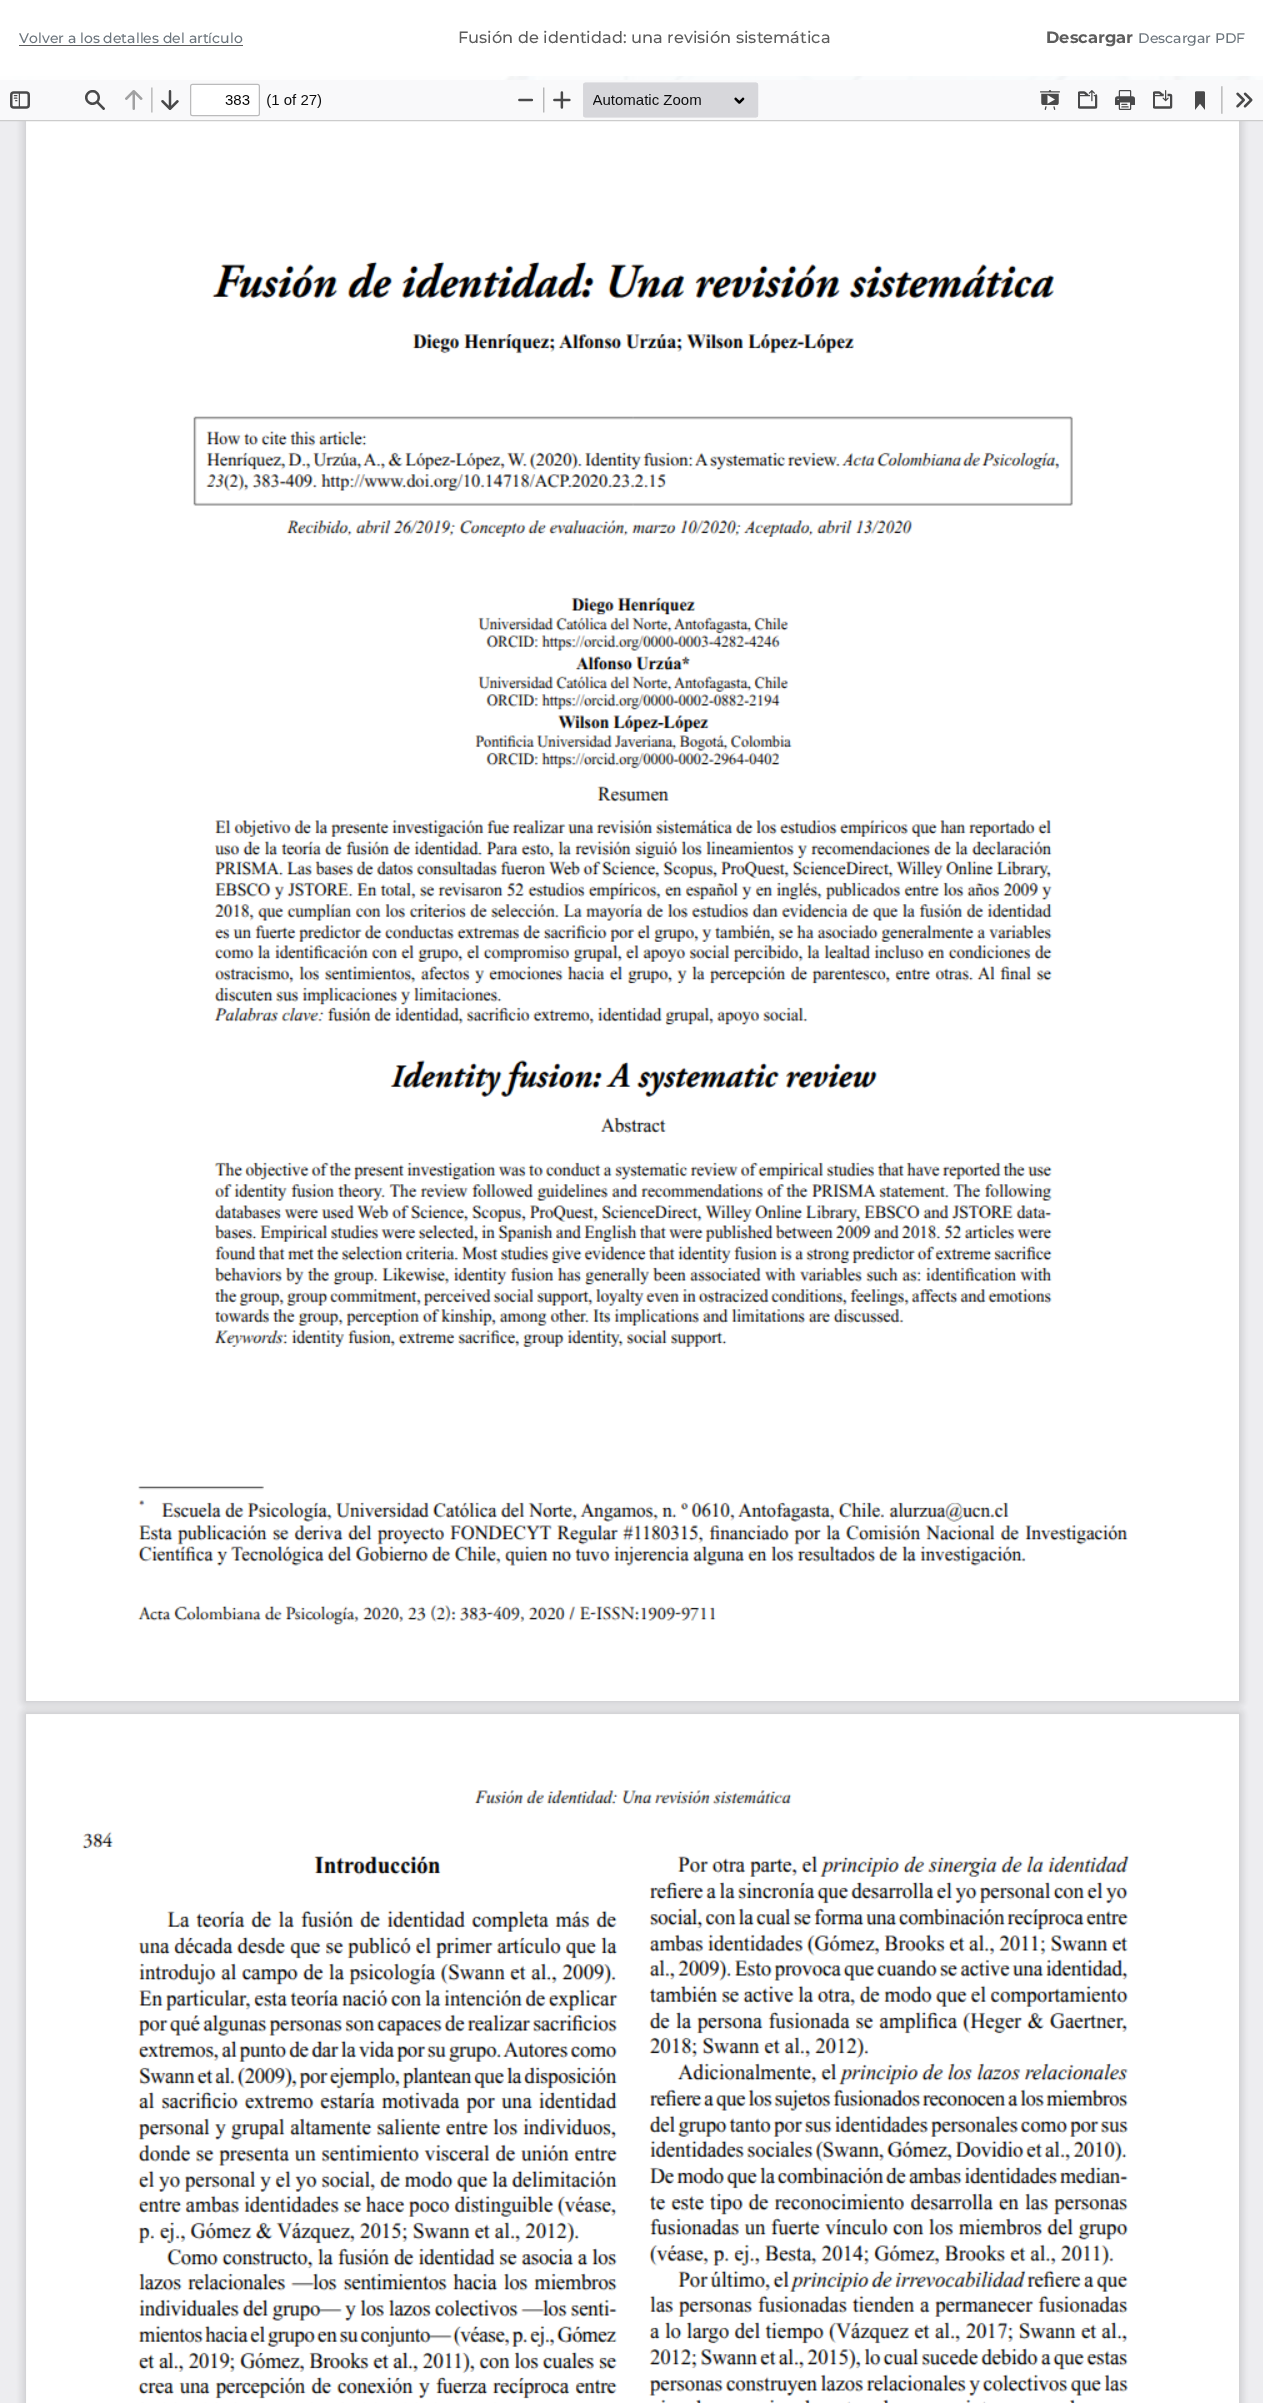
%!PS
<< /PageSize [1263 2403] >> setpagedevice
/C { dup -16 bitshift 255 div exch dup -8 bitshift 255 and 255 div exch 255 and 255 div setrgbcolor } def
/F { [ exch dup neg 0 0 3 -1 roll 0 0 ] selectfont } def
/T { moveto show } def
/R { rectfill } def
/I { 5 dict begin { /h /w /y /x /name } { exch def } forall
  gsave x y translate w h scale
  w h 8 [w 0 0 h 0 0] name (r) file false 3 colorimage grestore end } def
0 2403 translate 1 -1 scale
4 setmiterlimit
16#FFFFFF C
0 0 1263 2403 R
/Montserrat-Medium 14 F
16#6C757D C
(Volver a los detalles del artículo) 19 43 T
16#5D5D5D C
19 45 224 1 R
/Montserrat-Medium 16.25 F
(Fusión de identidad: una revisión sistemática) 458 43 T
/Montserrat-Bold 16.25 F
(Descargar) 1046 43 T
/Montserrat-Medium 14 F
16#6C757D C
(Descargar PDF) 1138 43 T
(1.rgb) 0 80 1263 2323 I
(2.rgb) 0 76 1263 4 I
showpage
